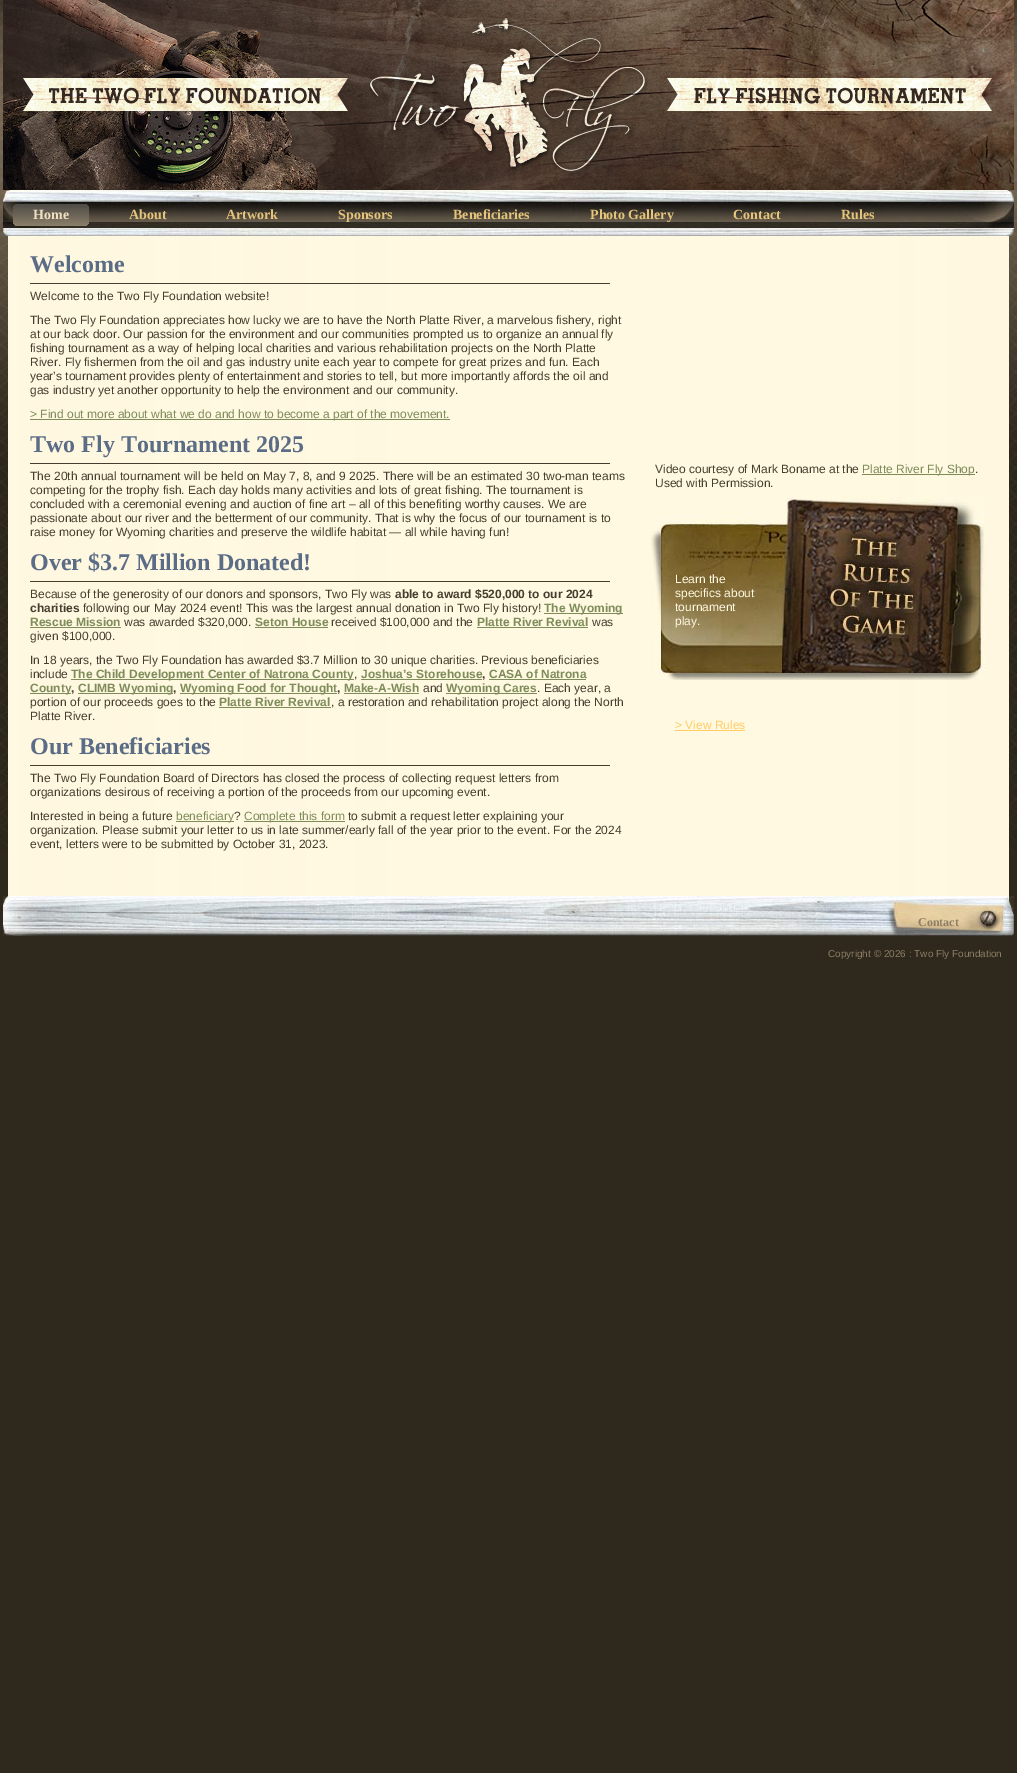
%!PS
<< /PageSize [1017 1773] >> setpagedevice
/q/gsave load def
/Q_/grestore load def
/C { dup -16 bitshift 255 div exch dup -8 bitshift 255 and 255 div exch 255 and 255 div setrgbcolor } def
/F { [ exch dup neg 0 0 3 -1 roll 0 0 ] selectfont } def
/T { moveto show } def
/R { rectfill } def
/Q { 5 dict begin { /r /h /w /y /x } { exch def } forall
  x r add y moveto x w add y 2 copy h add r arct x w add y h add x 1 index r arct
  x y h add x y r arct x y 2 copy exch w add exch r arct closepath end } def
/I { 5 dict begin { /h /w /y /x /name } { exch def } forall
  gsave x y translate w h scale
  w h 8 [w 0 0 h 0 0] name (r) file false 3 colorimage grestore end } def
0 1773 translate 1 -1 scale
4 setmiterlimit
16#2E281D C
0 0 1017 1773 R
(1.rgb) 0 0 1017 853 I
(2.rgb) 8 236 1001 660 I
(3.rgb) 3 0 1011 190 I
(4.rgb) 3 190 1011 46 I
q 13 204 76 22 5 Q clip newpath
<< /ShadingType 2 /ColorSpace /DeviceRGB /Coords [51 204 51 226] /Extend [true true] /Function << /FunctionType 2 /Domain [0 1] /C0 [.306 .294 .275] /C1 [.545 .498 .412] /N 1 >> >> shfill Q_
/LiberationSerif-Bold 14 F
16#F0E0C2 C
(Home) 33 219 T
16#E5C57B C
(About) 129 219 T
(Artwork) 226 219 T
(Sponsors) 338 219 T
(Beneficiaries) 453 219 T
(Photo Gallery) 590 219 T
(Contact) 733 219 T
(Rules) 841 219 T
16#473D2E C
30 283 580 1 R
/LiberationSerif-Bold 24 F
16#5B6D86 C
(Welcome) 30 272 T
/LiberationSans-Regular 12 F
16#473D2E C
(Welcome to the Two Fly Foundation website!) 30 300 T
(The Two Fly Foundation appreciates how lucky we are to have the North Platte River, a marvelous fishery, right) 30 324 T
(at our back door. Our passion for the environment and our communities prompted us to organize an annual fly) 30 338 T
(fishing tournament as a way of helping local charities and various rehabilitation projects on the North Platte) 30 352 T
(River. Fly fishermen from the oil and gas industry unite each year to compete for great prizes and fun. Each) 30 366 T
(year’s tournament provides plenty of entertainment and stories to tell, but more importantly affords the oil and) 30 380 T
(gas industry yet another opportunity to help the environment and our community.) 30 394 T
16#7D8C59 C
30 419 420 1 R
(> Find out more about what we do and how to become a part of the movement.) 30 418 T
16#473D2E C
30 463 580 1 R
/LiberationSerif-Bold 24 F
16#5B6D86 C
(Two Fly Tournament 2025) 30 452 T
/LiberationSans-Regular 12 F
16#473D2E C
(The 20th annual tournament will be held on May 7, 8, and 9 2025. There will be an estimated 30 two-man teams) 30 480 T
(competing for the trophy fish. Each day holds many activities and lots of great fishing. The tournament is) 30 494 T
(concluded with a ceremonial evening and auction of fine art – all of this benefiting worthy causes. We are) 30 508 T
(passionate about our river and the betterment of our community. That is why the focus of our tournament is to) 30 522 T
(raise money for Wyoming charities and preserve the wildlife habitat — all while having fun!) 30 536 T
30 581 580 1 R
/LiberationSerif-Bold 24 F
16#5B6D86 C
(Over $3.7 Million Donated!) 30 570 T
/LiberationSans-Regular 12 F
16#473D2E C
(Because of the generosity of our donors and sponsors, Two Fly was) 30 598 T
/LiberationSans-Bold 12 F
(able to award $520,000 to our 2024) 395 598 T
(charities) 30 612 T
/LiberationSans-Regular 12 F
(following our May 2024 event! This was the largest annual donation in Two Fly history!) 83 612 T
16#7D8C59 C
544 613 79 1 R
/LiberationSans-Bold 12 F
(The Wyoming) 544 612 T
(Rescue Mission) 30 626 T
30 627 91 1 R
/LiberationSans-Regular 12 F
16#473D2E C
(was awarded $320,000.) 124 626 T
/LiberationSans-Bold 12 F
16#7D8C59 C
(Seton House) 255 626 T
255 627 73 1 R
/LiberationSans-Regular 12 F
16#473D2E C
(received $100,000 and the) 331 626 T
/LiberationSans-Bold 12 F
16#7D8C59 C
(Platte River Revival) 477 626 T
477 627 111 1 R
/LiberationSans-Regular 12 F
16#473D2E C
(was) 592 626 T
(given $100,000.) 30 640 T
(In 18 years, the Two Fly Foundation has awarded $3.7 Million to 30 unique charities. Previous beneficiaries) 30 664 T
(include) 30 678 T
16#7D8C59 C
71 679 283 1 R
/LiberationSans-Bold 12 F
(The Child Development Center of Natrona County) 71 678 T
/LiberationSans-Regular 12 F
16#473D2E C
(,) 354 678 T
/LiberationSans-Bold 12 F
16#7D8C59 C
(Joshua’s Storehouse) 361 678 T
16#473D2E C
(,) 482 678 T
16#7D8C59 C
361 679 121 1 R
489 679 97 1 R
(CASA of Natrona) 489 678 T
30 693 41 1 R
(County) 30 692 T
16#473D2E C
(,) 71 692 T
16#7D8C59 C
78 693 95 1 R
(CLIMB Wyoming) 78 692 T
16#473D2E C
(,) 173 692 T
16#7D8C59 C
180 693 157 1 R
(Wyoming Food for Thought) 180 692 T
16#473D2E C
(,) 337 692 T
16#7D8C59 C
344 693 75 1 R
(Make-A-Wish) 344 692 T
/LiberationSans-Regular 12 F
16#473D2E C
(and) 423 692 T
16#7D8C59 C
446 693 91 1 R
/LiberationSans-Bold 12 F
(Wyoming Cares) 446 692 T
/LiberationSans-Regular 12 F
16#473D2E C
(. Each year, a) 537 692 T
(portion of our proceeds goes to the) 30 706 T
/LiberationSans-Bold 12 F
16#7D8C59 C
(Platte River Revival) 219 706 T
219 707 112 1 R
/LiberationSans-Regular 12 F
16#473D2E C
(, a restoration and rehabilitation project along the North) 331 706 T
(Platte River.) 30 720 T
30 765 580 1 R
/LiberationSerif-Bold 24 F
16#5B6D86 C
(Our Beneficiaries) 30 754 T
/LiberationSans-Regular 12 F
16#473D2E C
(The Two Fly Foundation Board of Directors has closed the process of collecting request letters from) 30 782 T
(organizations desirous of receiving a portion of the proceeds from our upcoming event.) 30 796 T
(Interested in being a future) 30 820 T
16#7D8C59 C
176 821 58 1 R
(beneficiary) 176 820 T
16#473D2E C
(?) 234 820 T
16#7D8C59 C
244 821 101 1 R
(Complete this form) 244 820 T
16#473D2E C
(to submit a request letter explaining your) 348 820 T
(organization. Please submit your letter to us in late summer/early fall of the year prior to the event. For the 2024) 30 834 T
(event, letters were to be submitted by October 31, 2023.) 30 848 T
(Video courtesy of Mark Boname at the) 655 473 T
16#7D8C59 C
862 474 113 1 R
(Platte River Fly Shop) 862 473 T
16#473D2E C
(.) 975 473 T
(Used with Permission.) 655 487 T
(5.rgb) 650 497 335 183 I
16#FFF9E1 C
(Learn the) 675 583 T
(specifics about) 675 597 T
(tournament) 675 611 T
(play.) 675 625 T
16#FFCC66 C
(> View Rules) 675 729 T
675 730 70 1 R
(6.rgb) 3 896 1011 40 I
/LiberationSerif-Bold 12 F
16#8E7E66 C
(Contact) 918 926 T
/LiberationSans-Regular 10 F
(Copyright © 2026 : Two Fly Foundation) 828 957 T
showpage
